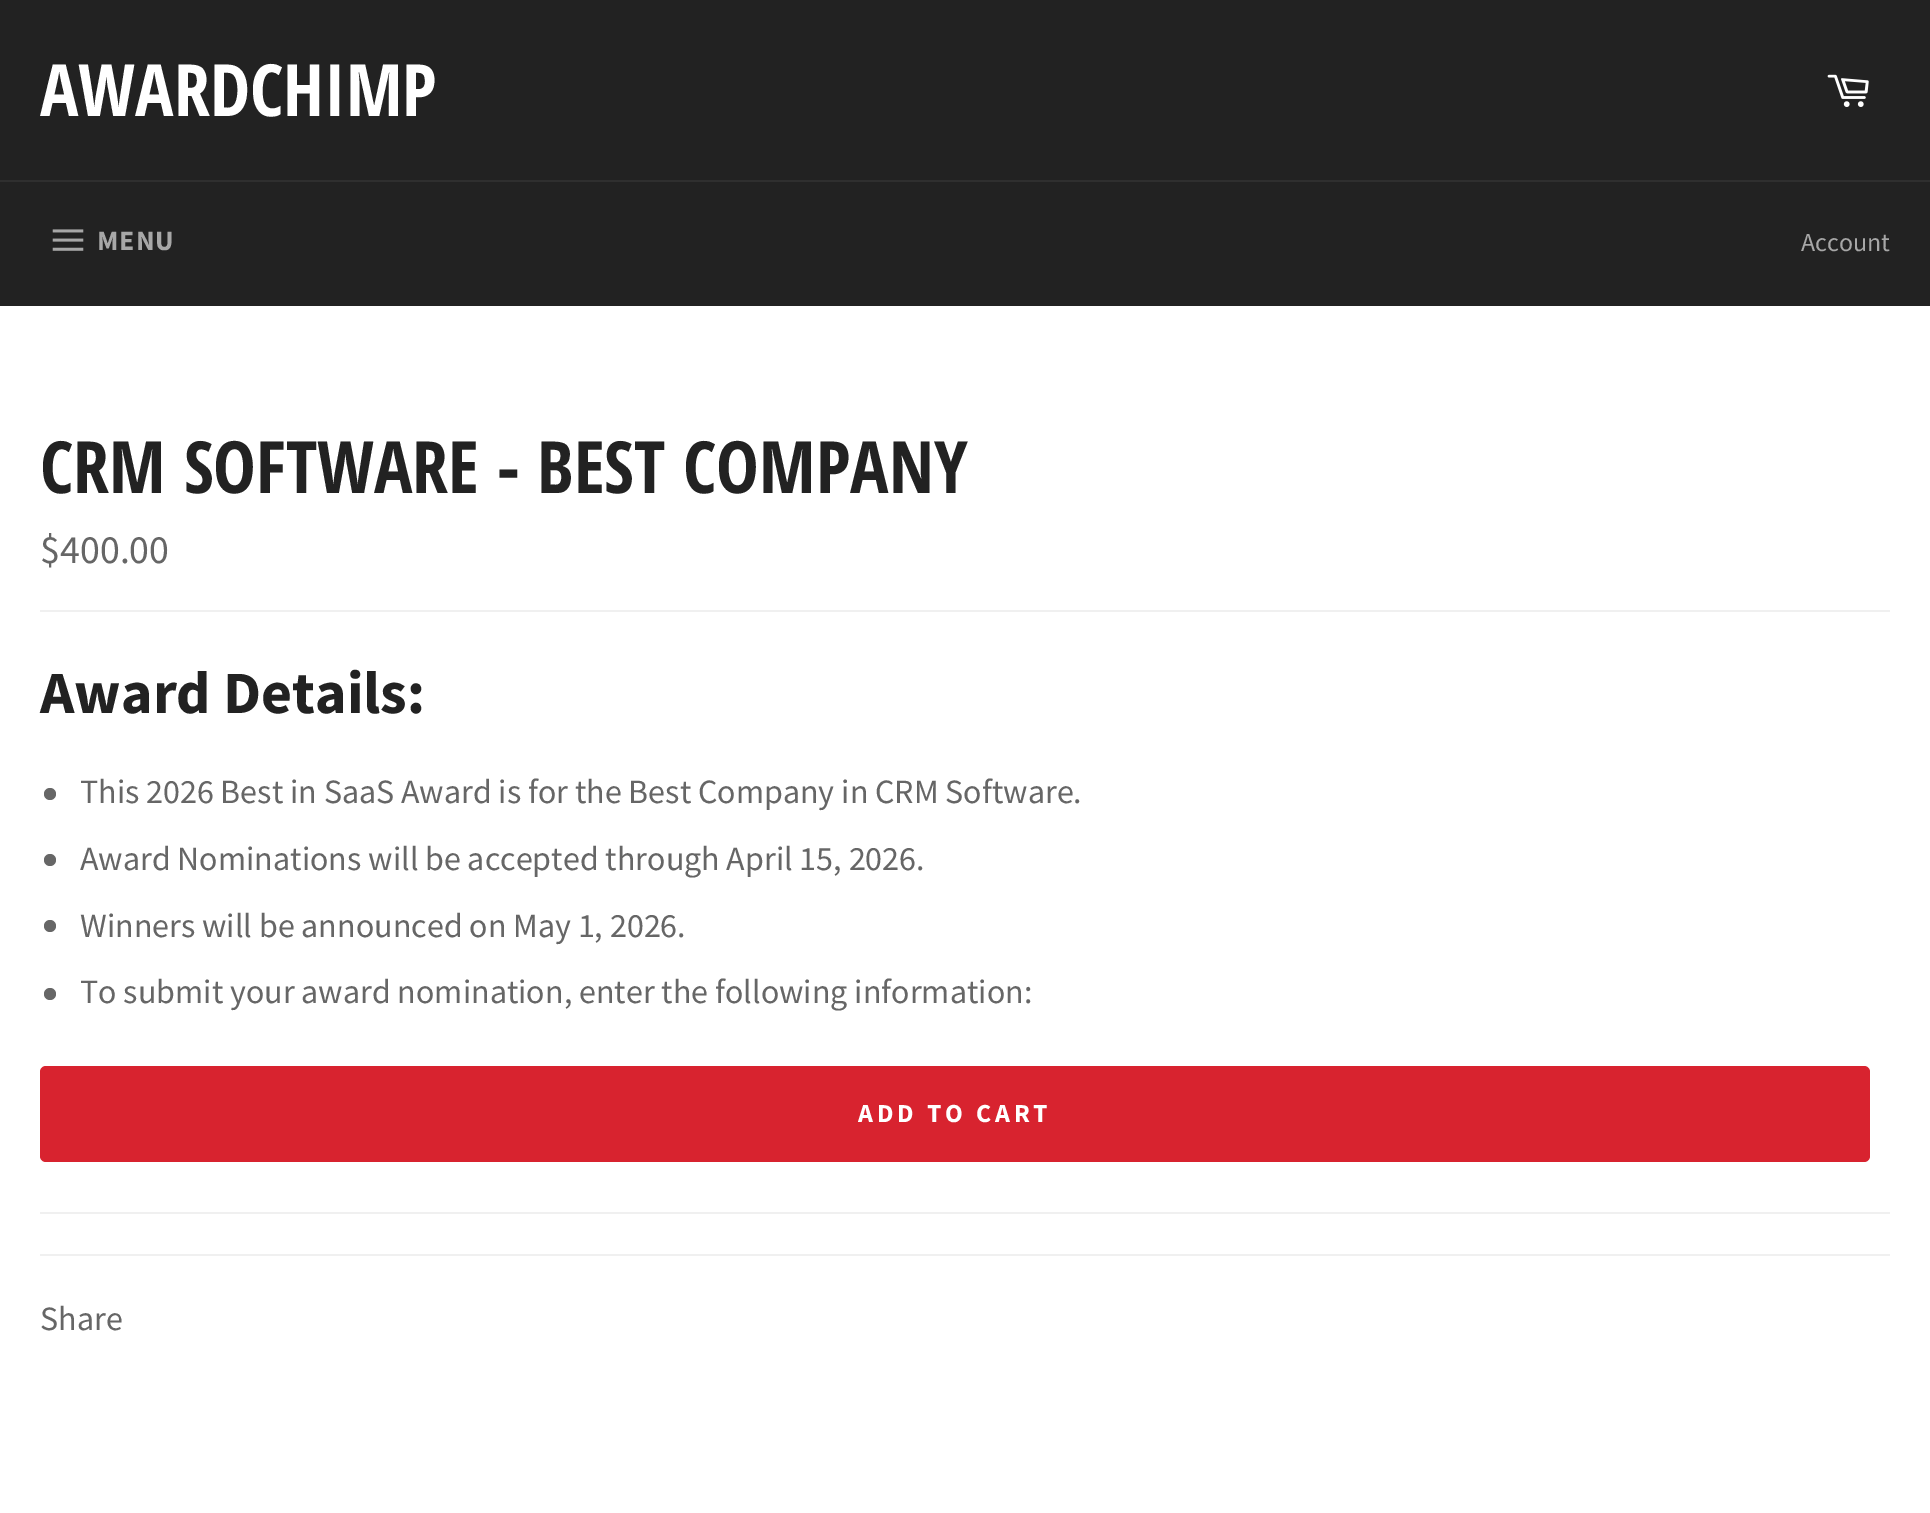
%!PS
<< /PageSize [1930 1513] >> setpagedevice
/m/moveto load def
/f/fill load def
/C { dup -16 bitshift 255 div exch dup -8 bitshift 255 and 255 div exch 255 and 255 div setrgbcolor } def
/F { [ exch dup neg 0 0 3 -1 roll 0 0 ] selectfont } def
/T { moveto show } def
/R { rectfill } def
/O { newpath 0 360 arc closepath } def
/Q { 5 dict begin { /r /h /w /y /x } { exch def } forall
  x r add y moveto x w add y 2 copy h add r arct x w add y h add x 1 index r arct
  x y h add x y r arct x y 2 copy exch w add exch r arct closepath end } def
/I { 5 dict begin { /h /w /y /x /name } { exch def } forall
  gsave x y translate w h scale
  w h 8 [w 0 0 h 0 0] name (r) file false 3 colorimage grestore end } def
0 1513 translate 1 -1 scale
4 setmiterlimit
16#222222 C
0 0 1930 1513 R
/OpenSansCondensed-Bold 72 F
16#FFFFFF C
(AWARDCHIMP) 40 116 T
(1.rgb) 1827 74 42 33 I
16#2F2F2F C
0 180 1930 2 R
(2.rgb) 52 229 32 22 I
/SourceSansPro-Bold 28 F
16#A7A7A7 C
97 250 m 1 0 (MENU) ashow
/SourceSansPro-Regular 26 F
(Account) 1801 251 T
16#FFFFFF C
0 306 1930 1207 R
/OpenSansCondensed-Bold 72 F
16#222222 C
(CRM SOFTWARE - BEST COMPANY) 40 493 T
/SourceSansPro-Regular 40 F
16#666666 C
($400.00) 40 563 T
16#F0F0F0 C
40 610 1850 2 R
/SourceSansPro-Bold 60 F
16#222222 C
(Award Details:) 40 713 T
16#666666 C
50 794 6 O f
/SourceSansPro-Regular 34 F
(This 2026 Best in SaaS Award is for the Best Company in CRM Software.) 80 803 T
50 860 6 O f
(Award Nominations will be accepted through April 15, 2026.) 80 870 T
50 926 6 O f
(Winners will be announced on May 1, 2026.) 80 937 T
50 994 6 O f
(To submit your award nomination, enter the following information:) 80 1003 T
16#D8232F C
40 1066 1830 96 6 Q f
/SourceSansPro-Bold 26 F
16#FFFFFF C
858 1122 m 3.9 0 (ADD TO CART) ashow
16#F0F0F0 C
40 1212 1850 2 R
40 1254 1850 2 R
/SourceSansPro-Regular 34 F
16#666666 C
(Share) 40 1330 T
showpage
